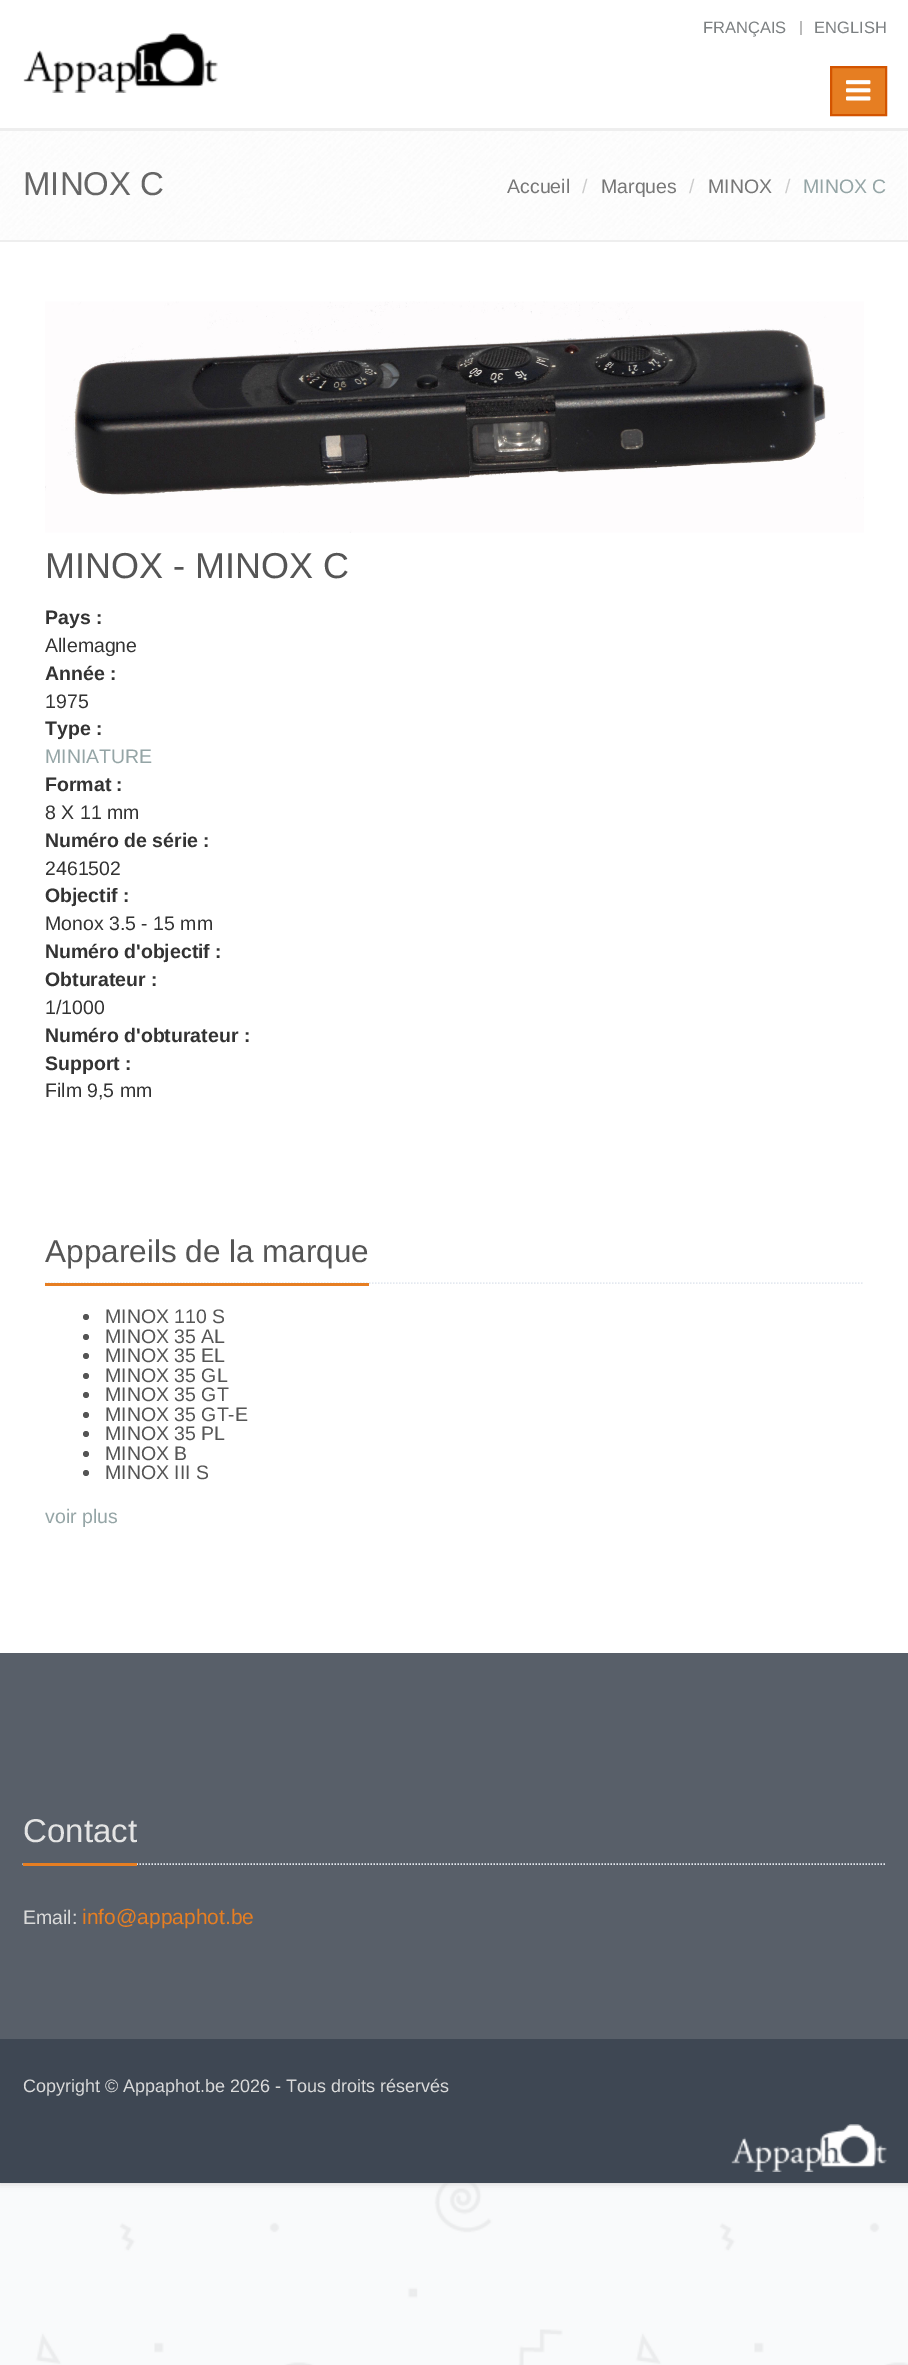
%!PS
<< /PageSize [908 2365] /PageUsesTransparency true >> setpagedevice
/m/moveto load def
/l/rlineto load def
/z/closepath load def
/f/fill load def
/s/stroke load def
/q/gsave load def
/Q_/grestore load def
/w/setlinewidth load def
/C { dup -16 bitshift 255 div exch dup -8 bitshift 255 and 255 div exch 255 and 255 div setrgbcolor } def
/F { [ exch dup neg 0 0 3 -1 roll 0 0 ] selectfont } def
/T { moveto show } def
/R { rectfill } def
/A { dup .setfillconstantalpha .setstrokeconstantalpha } def
/O { newpath 0 360 arc closepath } def
/Q { 5 dict begin { /r /h /w /y /x } { exch def } forall
  x r add y moveto x w add y 2 copy h add r arct x w add y h add x 1 index r arct
  x y h add x y r arct x y 2 copy exch w add exch r arct closepath end } def
/S { 12 dict begin { /a /b /q /h /w /y /x } { exch def } forall gsave /was 0 def
  9 -2 -9 { dup b mul 4 div /e exch def 1 sub .425 mul 2.718 exch exp 1 add a .99 .min exch div /now exch def
    1 1 now sub 1 was sub div sub A /was now def
    w h .min e 2 mul add 0 gt { x e sub y e sub w e 2 mul add h e 2 mul add
      q e add b .6 mul add w h .min 2 div e add .min 0 .max Q fill } if } for grestore end } def
/I { 5 dict begin { /h /w /y /x /name } { exch def } forall
  gsave x y translate w h scale
  w h 8 [w 0 0 h 0 0] name (r) file false 3 colorimage grestore end } def
0 .pushpdf14devicefilter
0 2365 translate 1 -1 scale
4 setmiterlimit
16#FFFFFF C
0 0 908 2365 R
(1.rgb) 0 2183 908 182 I
16#CCCCCC C
0 0 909 2183 0 4 1 S
16#FFFFFF C
0 0 908 1653 R
16#EEEEEE C
0 128 908 3 R
/LiberationSans-Regular 16.5 F
16#7C8082 C
(FRANÇAIS) 703 33 T
16#BBBBBB C
800 21 2 14 R
16#7C8082 C
(ENGLISH) 814 33 T
(2.rgb) 23 33 195 60 I
16#E67E22 C
831 67 m 55 0 l 0 48 l -55 0 l z q f Q_
16#D35400 C
2 w
s
(3.rgb) 846 80 25 21 I
(4.rgb) 0 131 907 109 I
16#EEEEEE C
0 240 908 2 R
/LiberationSans-Regular 33 F
16#666666 C
(MINOX C) 23 195 T
/LiberationSans-Regular 19.5 F
16#777777 C
(Accueil) 507 193 T
16#CCCCCC C
(/) 582 193 T
16#777777 C
(Marques) 601 193 T
16#CCCCCC C
(/) 689 193 T
16#777777 C
(MINOX) 708 193 T
16#CCCCCC C
(/) 785 193 T
16#95A5A6 C
(MINOX C) 803 193 T
(5.rgb) 45 301 819 232 I
/LiberationSans-Regular 36 F
16#555555 C
(MINOX - MINOX C) 45 578 T
/LiberationSans-Bold 19.5 F
16#333333 C
(Pays :) 45 624 T
/LiberationSans-Regular 19.5 F
(Allemagne) 45 652 T
/LiberationSans-Bold 19.5 F
(Année :) 45 680 T
/LiberationSans-Regular 19.5 F
(1975) 45 708 T
/LiberationSans-Bold 19.5 F
(Type :) 45 735 T
/LiberationSans-Regular 19.5 F
16#95A5A6 C
(MINIATURE) 45 763 T
/LiberationSans-Bold 19.5 F
16#333333 C
(Format :) 45 791 T
/LiberationSans-Regular 19.5 F
(8 X 11 mm) 45 819 T
/LiberationSans-Bold 19.5 F
(Numéro de série :) 45 847 T
/LiberationSans-Regular 19.5 F
(2461502) 45 875 T
/LiberationSans-Bold 19.5 F
(Objectif :) 45 902 T
/LiberationSans-Regular 19.5 F
(Monox 3.5 - 15 mm) 45 930 T
/LiberationSans-Bold 19.5 F
(Numéro d'objectif :) 45 958 T
(Obturateur :) 45 986 T
/LiberationSans-Regular 19.5 F
(1/1000) 45 1014 T
/LiberationSans-Bold 19.5 F
(Numéro d'obturateur :) 45 1042 T
(Support :) 45 1070 T
/LiberationSans-Regular 19.5 F
(Film 9,5 mm) 45 1097 T
16#E4E9F0 C
1.5 w
[1.5 1.5] 0 setdash
45 1283 m 819 0 l s
16#E67E22 C
45 1283 324 3 R
/LiberationSans-Regular 31.5 F
16#555555 C
(Appareils de la marque) 45 1262 T
86 1317 3 O f
/LiberationSans-Regular 19.5 F
(MINOX 110 S) 105 1323 T
86 1337 3 O f
(MINOX 35 AL) 105 1343 T
86 1356 3 O f
(MINOX 35 EL) 105 1362 T
86 1376 3 O f
(MINOX 35 GL) 105 1382 T
86 1395 3 O f
(MINOX 35 GT) 105 1401 T
86 1415 3 O f
(MINOX 35 GT-E) 105 1421 T
86 1434 3 O f
(MINOX 35 PL) 105 1440 T
86 1454 3 O f
(MINOX B) 105 1460 T
86 1473 3 O f
(MINOX III S) 105 1479 T
16#95A5A6 C
(voir plus) 45 1523 T
16#585F69 C
0 1653 908 386 R
16#E4E9F0 C
22.5 1864 m 864 0 l s
16#E67E22 C
23 1863 114 3 R
/LiberationSans-Regular 33 F
16#E4E4E4 C
(Contact) 23 1842 T
/LiberationSans-Regular 19.5 F
16#DADADA C
(Email:) 23 1924 T
/LiberationSans-Regular 21 F
16#E67E22 C
(info@appaphot.be) 82 1924 T
16#3E4753 C
0 2039 908 144 R
/LiberationSans-Regular 18 F
16#DADADA C
(Copyright © Appaphot.be 2026 - Tous droits réservés) 23 2092 T
(6.rgb) 731 2124 156 48 I
.poppdf14devicefilter showpage
